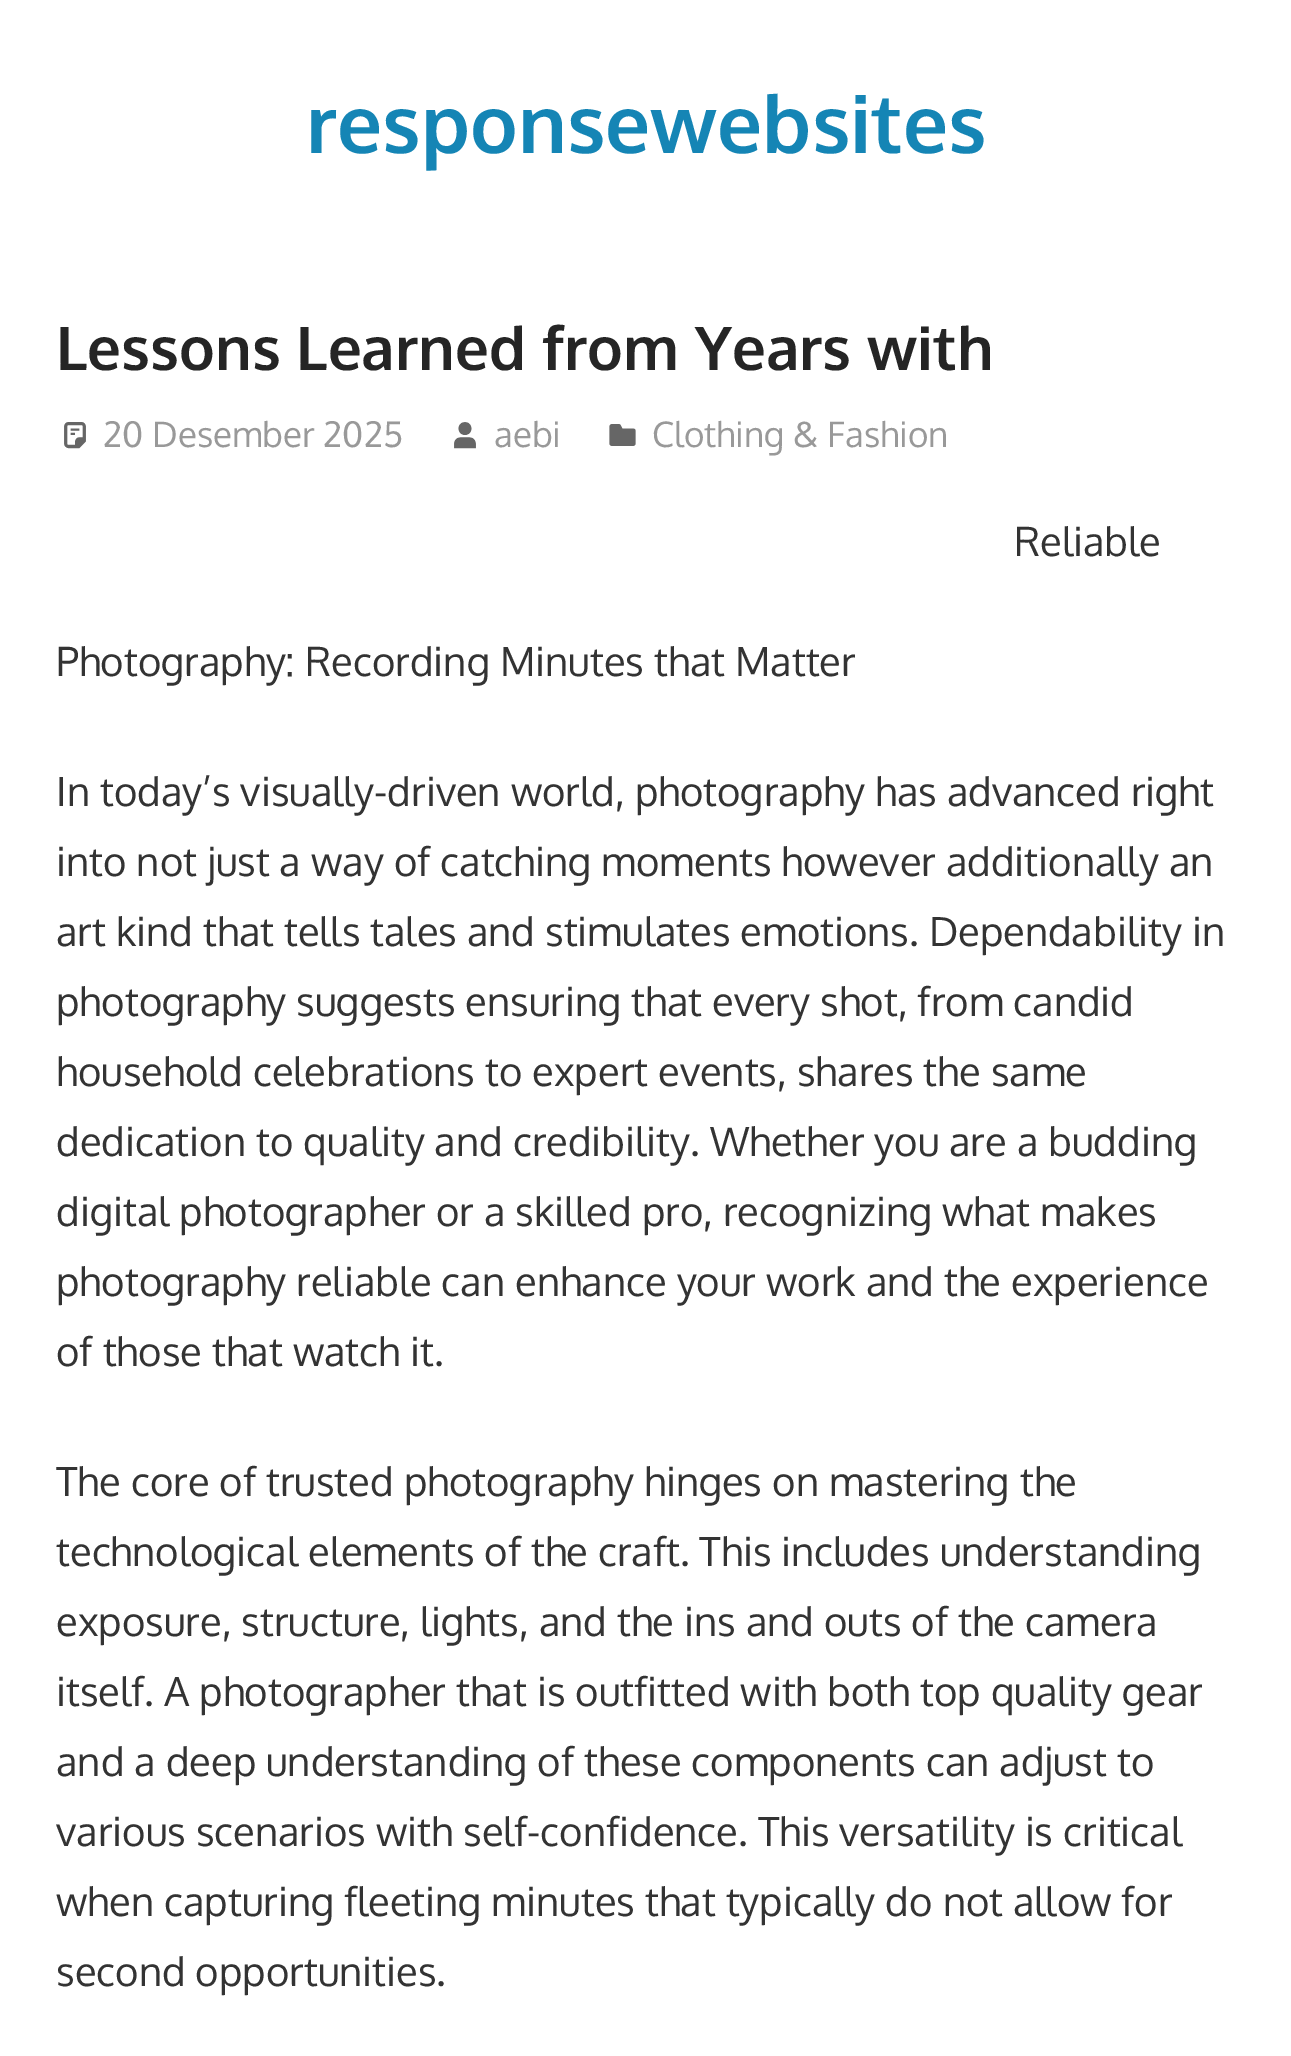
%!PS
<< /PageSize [1291 2056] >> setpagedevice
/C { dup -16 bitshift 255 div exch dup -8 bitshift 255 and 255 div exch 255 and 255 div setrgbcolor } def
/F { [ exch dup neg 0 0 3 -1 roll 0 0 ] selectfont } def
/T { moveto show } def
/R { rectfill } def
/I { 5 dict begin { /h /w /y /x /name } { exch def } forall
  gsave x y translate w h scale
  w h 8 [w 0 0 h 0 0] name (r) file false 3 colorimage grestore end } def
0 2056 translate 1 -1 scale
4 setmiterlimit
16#FFFFFF C
0 0 1291 2056 R
/Oxygen-Bold 80 F
16#1585B5 C
(responsewebsites) 306 153 T
/Oxygen-Bold 60 F
16#252525 C
(Lessons Learned from Years with) 56 370 T
(1.rgb) 64 422 22 27 I
/Oxygen-Regular 35 F
16#999999 C
(20 Desember 2025) 103 447 T
(2.rgb) 454 422 22 27 I
(aebi) 494 447 T
(3.rgb) 609 424 27 22 I
(Clothing & Fashion) 652 447 T
/Oxygen-Regular 40 F
16#333333 C
(Reliable) 1014 556 T
(Photography: Recording Minutes that Matter) 56 676 T
(In today’s visually-driven world, photography has advanced right) 56 806 T
(into not just a way of catching moments however additionally an) 56 876 T
(art kind that tells tales and stimulates emotions. Dependability in) 56 946 T
(photography suggests ensuring that every shot, from candid) 56 1016 T
(household celebrations to expert events, shares the same) 56 1086 T
(dedication to quality and credibility. Whether you are a budding) 56 1156 T
(digital photographer or a skilled pro, recognizing what makes) 56 1226 T
(photography reliable can enhance your work and the experience) 56 1296 T
(of those that watch it.) 56 1366 T
(The core of trusted photography hinges on mastering the) 56 1496 T
(technological elements of the craft. This includes understanding) 56 1566 T
(exposure, structure, lights, and the ins and outs of the camera) 56 1636 T
(itself. A photographer that is outfitted with both top quality gear) 56 1706 T
(and a deep understanding of these components can adjust to) 56 1776 T
(various scenarios with self-confidence. This versatility is critical) 56 1846 T
(when capturing fleeting minutes that typically do not allow for) 56 1916 T
(second opportunities.) 56 1986 T
showpage
